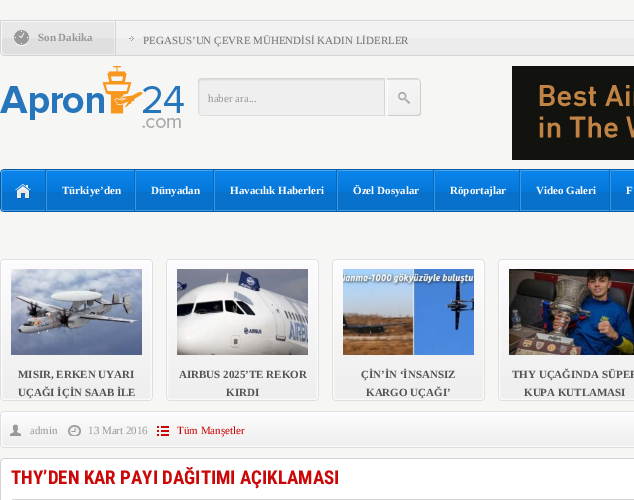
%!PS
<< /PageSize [634 500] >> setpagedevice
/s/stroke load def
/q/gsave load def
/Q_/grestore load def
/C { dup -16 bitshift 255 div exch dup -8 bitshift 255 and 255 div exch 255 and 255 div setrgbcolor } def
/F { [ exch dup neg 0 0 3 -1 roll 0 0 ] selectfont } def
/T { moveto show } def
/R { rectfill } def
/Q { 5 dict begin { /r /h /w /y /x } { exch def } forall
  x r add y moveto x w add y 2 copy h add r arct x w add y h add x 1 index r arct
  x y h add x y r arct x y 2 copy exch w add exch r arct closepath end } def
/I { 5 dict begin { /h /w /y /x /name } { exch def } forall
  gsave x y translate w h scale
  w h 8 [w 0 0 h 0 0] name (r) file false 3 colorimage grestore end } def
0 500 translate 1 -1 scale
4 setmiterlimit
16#F6F6F5 C
0 0 634 500 R
(1.rgb) 0 20 116 36 I
/LiberationSerif-Bold 11 F
16#999999 C
(Son Dakika) 38 41 T
(2.rgb) 116 20 518 36 I
(3.rgb) 129 36 5 5 I
/LiberationSerif-Regular 11 F
16#6E6E6E C
(PEGASUS’UN ÇEVRE MÜHENDİSİ KADIN LİDERLER) 143 44 T
(4.rgb) 0 66 184 62 I
(5.rgb) 198 78 187 38 I
16#999999 C
(haber ara...) 208 102 T
(6.rgb) 387 78 34 38 I
(7.rgb) 512 66 122 94 I
(8.rgb) 0 169 634 43 I
(9.rgb) 45 170 2 41 I
(10.rgb) 15 184 17 15 I
(9.rgb) 134 170 2 41 I
/LiberationSerif-Bold 11 F
16#FFFFFF C
(Türkiye’den) 62 194 T
(9.rgb) 213 170 2 41 I
(Dünyadan) 151 194 T
(9.rgb) 336 170 2 41 I
(Havacılık Haberleri) 230 194 T
(9.rgb) 433 170 2 41 I
(Özel Dosyalar) 353 194 T
(9.rgb) 519 170 2 41 I
(Röportajlar) 450 194 T
(9.rgb) 609 170 2 41 I
(Video Galeri) 536 194 T
(F) 626 194 T
(11.rgb) 0 259 153 142 I
(12.rgb) 11 269 131 86 I
16#535353 C
(MISIR, ERKEN UYARI) 18 378 T
(UÇAĞI İÇİN SAAB İLE) 18 396 T
(11.rgb) 166 259 153 142 I
(13.rgb) 177 269 131 86 I
(AIRBUS 2025’TE REKOR) 179 378 T
(KIRDI) 226 396 T
(11.rgb) 332 259 153 142 I
(14.rgb) 343 269 131 86 I
(ÇİN’İN ‘İNSANSIZ) 361 378 T
(KARGO UÇAĞI’) 366 396 T
(15.rgb) 498 259 136 142 I
(16.rgb) 509 269 125 86 I
(THY UÇAĞINDA SÜPER) 512 378 T
(KUPA KUTLAMASI) 524 396 T
(17.rgb) 0 411 634 37 I
(18.rgb) 10 424 11 12 I
/LiberationSerif-Regular 11 F
16#999999 C
(admin) 30 434 T
(19.rgb) 68 425 13 11 I
(13 Mart 2016) 88 434 T
(20.rgb) 157 426 12 10 I
16#CB0707 C
(Tüm Manşetler) 177 434 T
(21.rgb) 0 458 634 9 I
16#FFFFFF C
1 467 633 33 R
16#D4D4D4 C
0 467 1 33 R
q
11 467 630 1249 rectclip
/RobotoCondensed-Bold 19 F
16#CB0707 C
(THY’DEN KAR PAYI DAĞITIMI AÇIKLAMASI) 11 484 T
Q_
11.5 499.5 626 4 2.5 Q s
showpage
